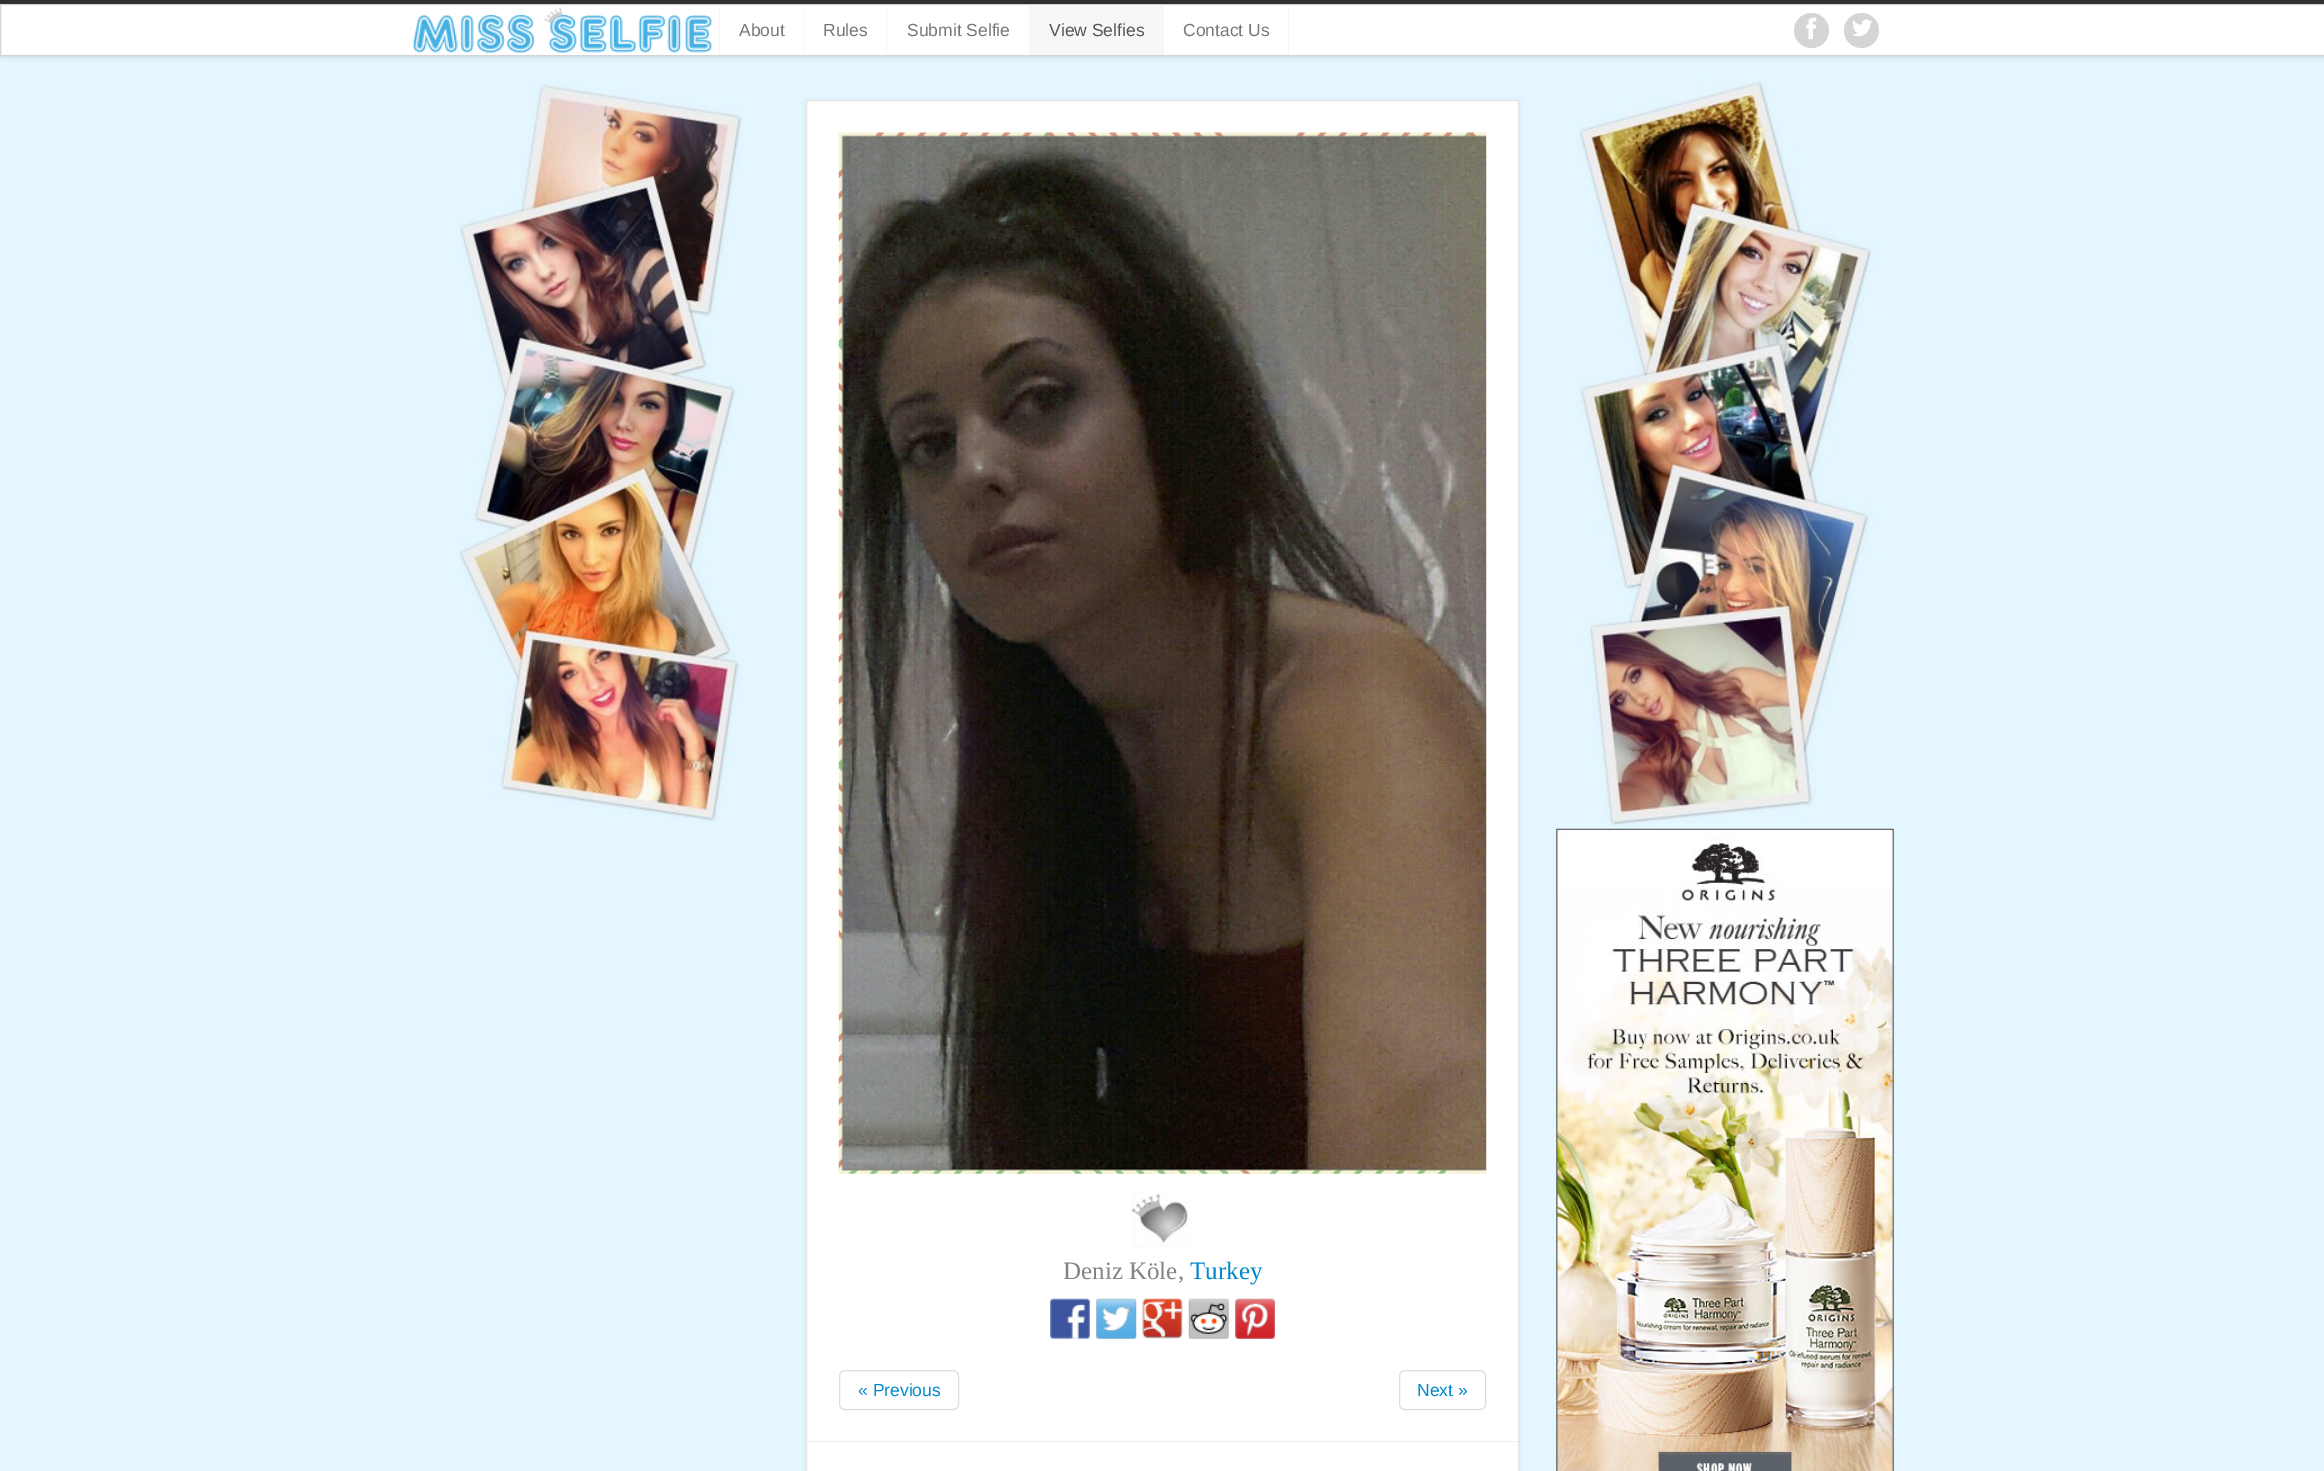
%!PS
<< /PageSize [2324 1471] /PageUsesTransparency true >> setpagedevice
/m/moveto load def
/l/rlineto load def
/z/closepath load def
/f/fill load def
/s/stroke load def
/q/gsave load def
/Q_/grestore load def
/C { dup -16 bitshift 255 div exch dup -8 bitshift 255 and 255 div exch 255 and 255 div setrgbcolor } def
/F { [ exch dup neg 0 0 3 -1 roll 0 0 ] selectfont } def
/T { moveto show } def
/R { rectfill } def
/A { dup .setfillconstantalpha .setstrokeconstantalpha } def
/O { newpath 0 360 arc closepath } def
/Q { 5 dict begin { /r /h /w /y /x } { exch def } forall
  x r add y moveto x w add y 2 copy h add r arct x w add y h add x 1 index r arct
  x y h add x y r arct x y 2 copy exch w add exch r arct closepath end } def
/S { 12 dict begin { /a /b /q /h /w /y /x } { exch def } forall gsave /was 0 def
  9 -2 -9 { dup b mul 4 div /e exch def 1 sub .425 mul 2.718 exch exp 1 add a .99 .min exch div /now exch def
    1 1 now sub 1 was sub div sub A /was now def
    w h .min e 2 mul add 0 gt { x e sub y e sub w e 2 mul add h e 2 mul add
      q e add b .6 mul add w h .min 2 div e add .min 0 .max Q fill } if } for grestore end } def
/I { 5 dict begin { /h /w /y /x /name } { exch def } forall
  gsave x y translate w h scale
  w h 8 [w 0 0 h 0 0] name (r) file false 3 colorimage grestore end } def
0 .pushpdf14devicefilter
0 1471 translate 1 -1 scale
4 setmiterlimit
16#E4F6FF C
0 0 2324 1471 R
16#2F2F2F C
0 0 2324 4 R
16#000000 C
0 5 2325 53 0 2 .08 S
16#FFFFFF C
.5 4.5 m 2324 0 l 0 51 l -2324 0 l z q f Q_
16#D4D4D4 C
s
16#F5F5F5 C
719 5 1 50 R
(1.rgb) 413 7 299 46 I
804 5 1 50 R
/LiberationSans-Regular 17.5 F
16#777777 C
(About) 739 36 T
16#F5F5F5 C
886 5 1 50 R
16#777777 C
(Rules) 823 36 T
16#F5F5F5 C
1029 5 1 50 R
16#777777 C
(Submit Selfie) 907 36 T
16#F5F5F5 C
1163 5 1 50 R
16#F7F7F7 C
1030 5 133 50 R
16#555555 C
(View Selfies) 1049 36 T
16#F5F5F5 C
1288 5 1 50 R
16#777777 C
(Contact Us) 1183 36 T
16#D5D5D5 C
1811.5 30.5 17.5 O f
(2.rgb) 1806 17 11 23 I
1861.5 30.5 17.5 O f
(3.rgb) 1852 19 20 18 I
(4.rgb) 459 84 284 737 I
16#000000 C
806 101 713 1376 0 2 .08 S
16#FFFFFF C
806.5 100.5 m 712 0 l 0 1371 l -712 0 l z q f Q_
16#E5E5E5 C
s
(5.rgb) 838 132 649 1042 I
(6.rgb) 1131 1193 62 54 I
/LiberationSerif-Regular 25 F
16#848484 C
(Deniz Köle,) 1063 1279 T
16#0088CC C
(Turkey) 1190 1279 T
(7.rgb) 1050 1298 40 41 I
(8.rgb) 1096 1298 41 41 I
(9.rgb) 1142 1298 41 41 I
(10.rgb) 1188 1298 41 41 I
(11.rgb) 1235 1298 40 41 I
16#DDDDDD C
839.5 1370.5 119 39 5.5 Q s
/LiberationSans-Regular 17.5 F
16#0088CC C
(« Previous) 858 1396 T
16#DDDDDD C
1399.5 1370.5 86 39 5.5 Q s
16#0088CC C
(Next ») 1417 1396 T
16#EEEEEE C
808 1441 710 1 R
(12.rgb) 1575 79 300 750 I
(13.rgb) 1556 828 338 643 I
.poppdf14devicefilter showpage
